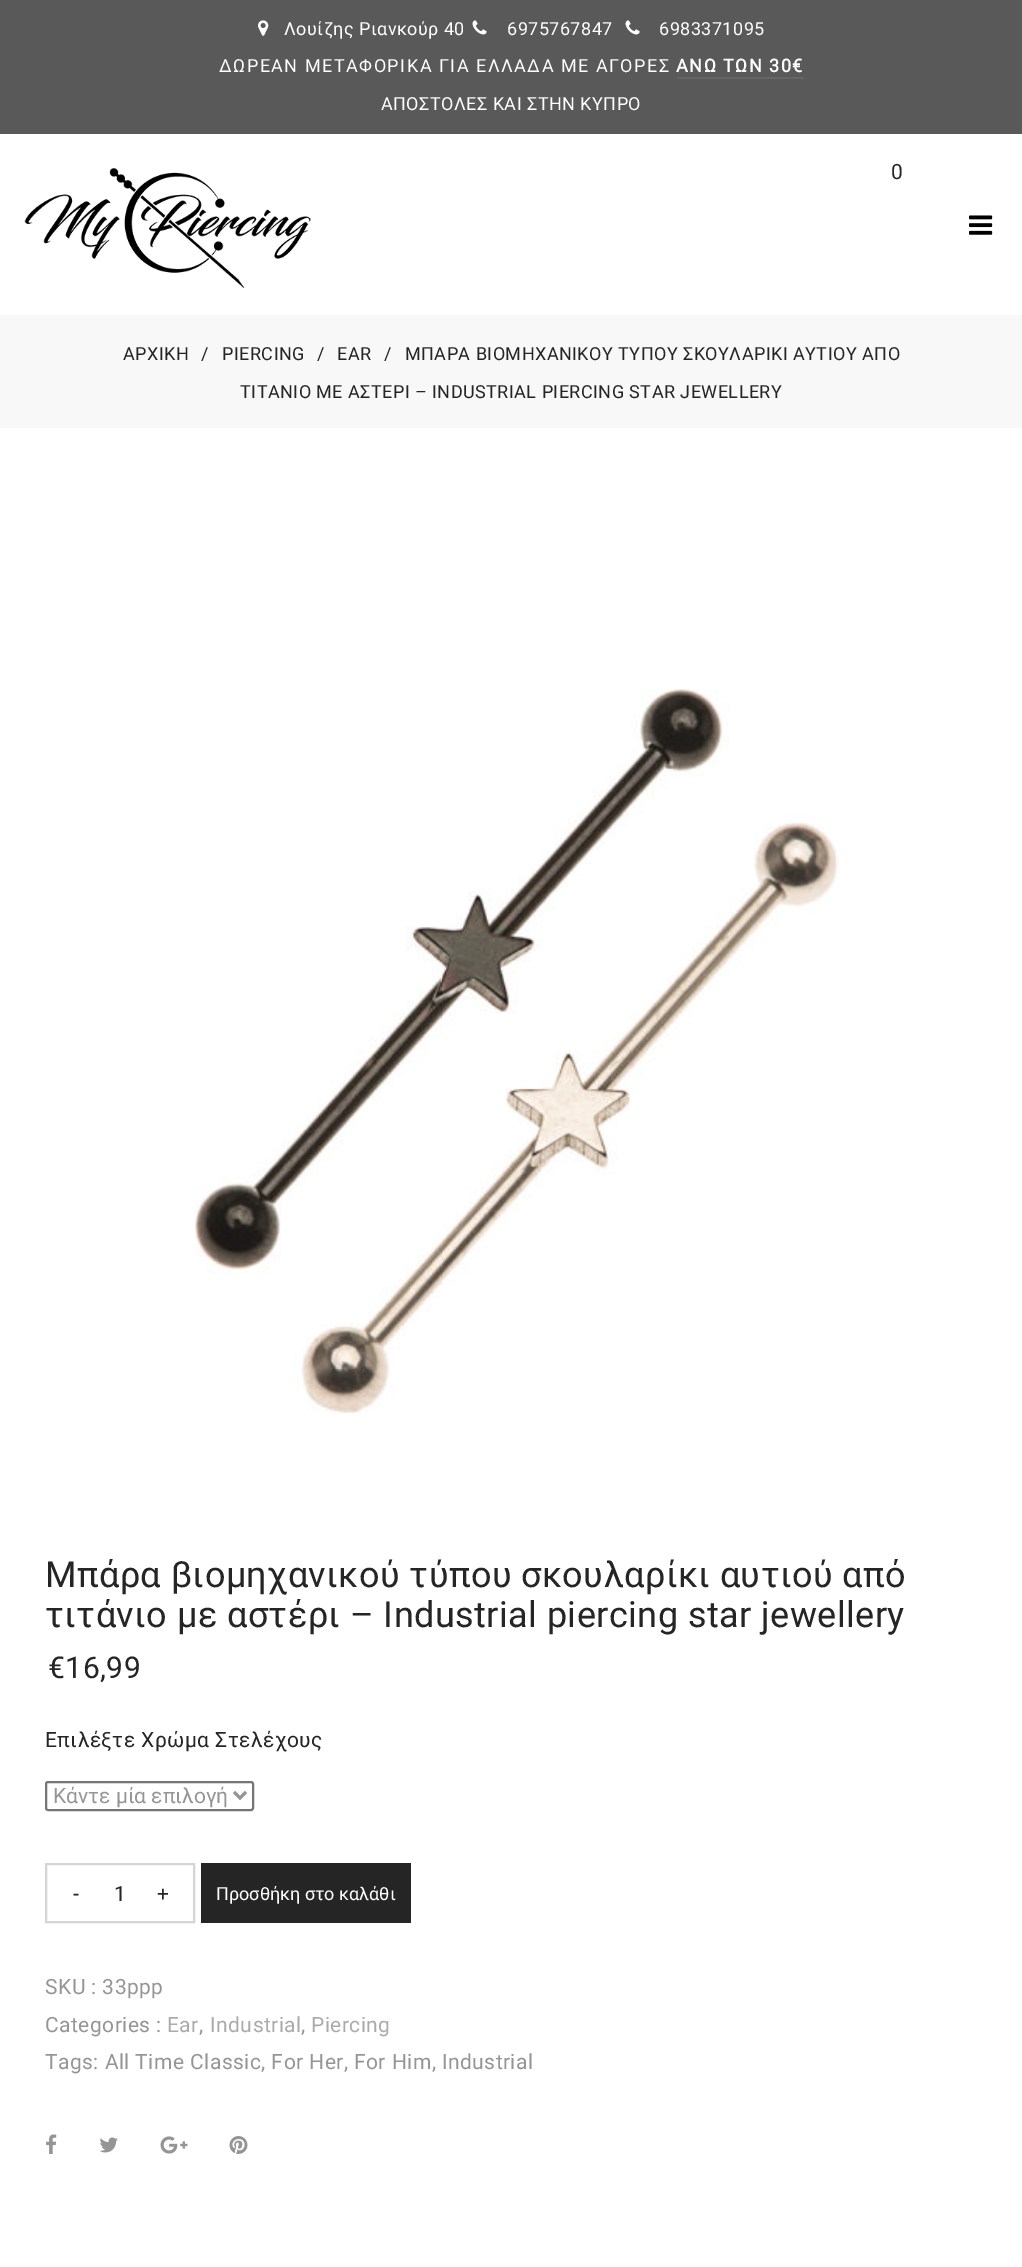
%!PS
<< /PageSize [1022 2267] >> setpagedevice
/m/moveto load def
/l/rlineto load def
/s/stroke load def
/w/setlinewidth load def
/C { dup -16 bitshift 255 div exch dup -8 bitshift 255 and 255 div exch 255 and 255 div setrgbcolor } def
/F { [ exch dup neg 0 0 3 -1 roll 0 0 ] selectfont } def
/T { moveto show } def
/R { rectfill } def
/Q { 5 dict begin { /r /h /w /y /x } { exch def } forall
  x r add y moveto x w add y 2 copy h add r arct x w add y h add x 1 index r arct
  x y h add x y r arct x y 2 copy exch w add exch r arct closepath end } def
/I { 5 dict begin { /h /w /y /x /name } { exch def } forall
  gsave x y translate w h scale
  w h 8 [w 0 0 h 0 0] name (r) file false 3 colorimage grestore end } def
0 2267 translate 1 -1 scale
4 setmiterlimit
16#FFFFFF C
0 0 1022 2267 R
16#595959 C
0 0 1022 134 R
(1.rgb) 258 20 11 16 I
/Roboto-Regular 18 F
16#FFFFFF C
284 35 m .45 0 (Λουίζης Ριανκούρ 40) ashow
(2.rgb) 472 20 15 15 I
507 35 m .45 0 (6975767847) ashow
(2.rgb) 625 20 15 15 I
659 35 m .45 0 (6983371095) ashow
219 72 m 1.5 0 (ΔΩΡΕΑΝ ΜΕΤΑΦΟΡΙΚΑ ΓΙΑ ΕΛΛΑΔΑ ΜΕ ΑΓΟΡΕΣ) ashow
/Roboto-Bold 18 F
676 72 m 1.5 0 (ΑΝΩ ΤΩΝ 30€) ashow
16#656565 C
677 77 127 2 R
/Roboto-Regular 18 F
16#FFFFFF C
381 110 m .45 0 (ΑΠΟΣΤΟΛΕΣ ΚΑΙ ΣΤΗΝ ΚΥΠΡΟ) ashow
(3.rgb) 24 168 287 120 I
/Roboto-Regular 21 F
16#252525 C
891 179 m .45 0 (0) ashow
(4.rgb) 969 215 24 20 I
16#F8F8F8 C
0 315 1022 113 R
/Roboto-Regular 18 F
16#252525 C
123 360 m .45 0 (ΑΡΧΙΚΗ) ashow
201 360 m .45 0 (/) ashow
222 360 m .45 0 (PIERCING) ashow
317 360 m .45 0 (/) ashow
337 360 m .45 0 (EAR) ashow
384 360 m .45 0 (/) ashow
405 360 m .45 0 (ΜΠΑΡΑ ΒΙΟΜΗΧΑΝΙΚΟΥ ΤΥΠΟΥ ΣΚΟΥΛΑΡΙΚΙ ΑΥΤΙΟΥ ΑΠΟ) ashow
240 398 m .45 0 (ΤΙΤΑΝΙΟ ΜΕ ΑΣΤΕΡΙ – INDUSTRIAL PIERCING STAR JEWELLERY) ashow
(5.rgb) 194 689 647 725 I
/Roboto-Regular 36 F
45 1587 m .45 0 (Μπάρα βιομηχανικού τύπου σκουλαρίκι αυτιού από) ashow
45 1627 m .45 0 (τιτάνιο με αστέρι – Industrial piercing star jewellery) ashow
/Roboto-Regular 30 F
48 1678 m .45 0 (€16,99) ashow
/Roboto-Regular 21 F
45 1747 m .45 0 (Επιλέξτε Χρώμα Στελέχους) ashow
16#767676 C
2 w
46 1782 207 28 2 Q s
16#959595 C
3 w
234 1792 m 6 6 l 6 -6 l s
(Κάντε μία επιλογή) 53 1803 T
16#D5D5D5 C
2 w
46 1864 148 58 rectstroke
16#252525 C
73 1901 m .45 0 (-) ashow
(1) 114 1901 T
157 1901 m .45 0 (+) ashow
201 1863 210 60 R
/Roboto-Regular 18 F
16#FFFFFF C
(Προσθήκη στο καλάθι) 216 1900 T
/Roboto-Regular 21 F
16#959595 C
45 1994 m .45 0 (SKU : 33ppp) ashow
45 2032 m .45 0 (Categories :) ashow
16#ABABAB C
167 2032 m .45 0 (Ear) ashow
16#959595 C
199 2032 m .45 0 (,) ashow
16#ABABAB C
210 2032 m .45 0 (Industrial) ashow
16#959595 C
301 2032 m .45 0 (,) ashow
16#ABABAB C
311 2032 m .45 0 (Piercing) ashow
16#959595 C
45 2069 m .45 0 (Tags: All Time Classic, For Her, For Him, Industrial) ashow
(6.rgb) 46 2134 11 20 I
(7.rgb) 99 2137 19 16 I
(8.rgb) 160 2136 28 18 I
(9.rgb) 229 2136 19 18 I
showpage
